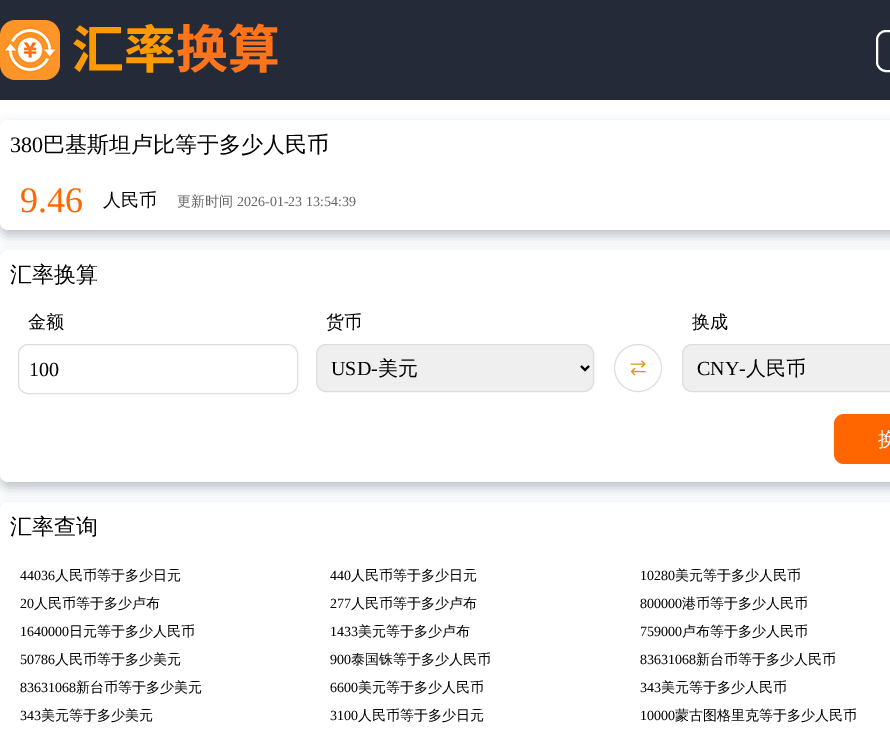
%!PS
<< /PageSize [890 731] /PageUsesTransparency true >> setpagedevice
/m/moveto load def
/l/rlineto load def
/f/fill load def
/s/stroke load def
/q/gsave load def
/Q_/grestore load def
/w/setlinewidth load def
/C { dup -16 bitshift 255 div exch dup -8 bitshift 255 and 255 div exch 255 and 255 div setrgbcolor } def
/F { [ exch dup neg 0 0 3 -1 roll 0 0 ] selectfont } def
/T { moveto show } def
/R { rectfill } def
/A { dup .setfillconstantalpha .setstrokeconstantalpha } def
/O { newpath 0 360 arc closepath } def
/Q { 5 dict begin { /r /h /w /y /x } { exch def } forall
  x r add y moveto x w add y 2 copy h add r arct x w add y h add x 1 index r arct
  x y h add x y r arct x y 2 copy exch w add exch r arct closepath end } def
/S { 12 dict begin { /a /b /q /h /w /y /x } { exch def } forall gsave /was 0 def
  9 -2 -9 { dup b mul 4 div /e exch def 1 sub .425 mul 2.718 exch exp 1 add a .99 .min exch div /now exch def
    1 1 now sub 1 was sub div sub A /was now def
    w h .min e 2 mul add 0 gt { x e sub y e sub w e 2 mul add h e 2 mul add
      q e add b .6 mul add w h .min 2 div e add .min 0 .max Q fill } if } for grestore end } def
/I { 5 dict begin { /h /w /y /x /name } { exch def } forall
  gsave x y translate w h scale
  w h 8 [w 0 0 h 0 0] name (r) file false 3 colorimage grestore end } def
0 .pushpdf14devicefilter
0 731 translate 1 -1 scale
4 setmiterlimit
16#FFFFFF C
0 0 890 731 R
16#242A37 C
0 0 890 100 R
(1.rgb) 0 20 278 60 I
16#FFFFFF C
2 w
877 31 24 40 9 Q s
16#233750 C
0 126 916 110 8 6 .3 S
16#FFFFFF C
0 120 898 110 8 Q f
/LiberationSerif-Regular 22 F
16#000000 C
(380) 10 152 T
/WenQuanYiZenHei-Medium 22 F
(巴基斯坦卢比等于多少人民币) 43 152 T
/LiberationSerif-Regular 36 F
16#FF6600 C
(9.46) 20 212 T
/WenQuanYiZenHei-Medium 18 F
16#000000 C
(人民币) 103 206 T
/WenQuanYiZenHei-Medium 14 F
16#666666 C
(更新时间) 177 206 T
/LiberationSerif-Regular 14 F
(2026-01-23 13:54:39) 237 206 T
16#233750 C
0 256 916 232 8 6 .3 S
16#FFFFFF C
0 250 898 232 8 Q f
/WenQuanYiZenHei-Medium 22 F
16#000000 C
(汇率换算) 10 282 T
/WenQuanYiZenHei-Medium 18 F
(金额) 28 328 T
16#DDDDDD C
1 w
18.5 344.5 279 49 9.5 Q s
/LiberationSerif-Regular 20 F
16#000000 C
(100) 29 376 T
/WenQuanYiZenHei-Medium 18 F
(货币) 326 328 T
16#EFEFEF C
316.5 344.5 277 47 9.5 Q q f Q_
16#DDDDDD C
s
16#000000 C
2 w
581 366 m 4 4 l 4 -4 l s
/LiberationSerif-Regular 20 F
(USD-) 331 375 T
/WenQuanYiZenHei-Medium 20 F
(美元) 378 375 T
(2.rgb) 630 360 16 16 I
16#DDDDDD C
1 w
638 368 23.5 O s
/WenQuanYiZenHei-Medium 18 F
16#000000 C
(换成) 692 328 T
16#EFEFEF C
682.5 344.5 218 47 9.5 Q q f Q_
16#DDDDDD C
s
/LiberationSerif-Regular 20 F
16#000000 C
(CNY-) 697 375 T
/WenQuanYiZenHei-Medium 20 F
(人民币) 746 375 T
16#FF6600 C
834 414 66 50 10 Q f
16#FFFFFF C
(换) 878 446 T
16#233750 C
0 508 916 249 8 6 .3 S
16#FFFFFF C
0 502 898 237 8 Q f
/WenQuanYiZenHei-Medium 22 F
16#000000 C
(汇率查询) 10 534 T
/LiberationSerif-Regular 14 F
(44036) 20 580 T
/WenQuanYiZenHei-Medium 14 F
(人民币等于多少日元) 55 580 T
/LiberationSerif-Regular 14 F
(440) 330 580 T
/WenQuanYiZenHei-Medium 14 F
(人民币等于多少日元) 351 580 T
/LiberationSerif-Regular 14 F
(10280) 640 580 T
/WenQuanYiZenHei-Medium 14 F
(美元等于多少人民币) 675 580 T
/LiberationSerif-Regular 14 F
(20) 20 608 T
/WenQuanYiZenHei-Medium 14 F
(人民币等于多少卢布) 34 608 T
/LiberationSerif-Regular 14 F
(277) 330 608 T
/WenQuanYiZenHei-Medium 14 F
(人民币等于多少卢布) 351 608 T
/LiberationSerif-Regular 14 F
(800000) 640 608 T
/WenQuanYiZenHei-Medium 14 F
(港币等于多少人民币) 682 608 T
/LiberationSerif-Regular 14 F
(1640000) 20 636 T
/WenQuanYiZenHei-Medium 14 F
(日元等于多少人民币) 69 636 T
/LiberationSerif-Regular 14 F
(1433) 330 636 T
/WenQuanYiZenHei-Medium 14 F
(美元等于多少卢布) 358 636 T
/LiberationSerif-Regular 14 F
(759000) 640 636 T
/WenQuanYiZenHei-Medium 14 F
(卢布等于多少人民币) 682 636 T
/LiberationSerif-Regular 14 F
(50786) 20 664 T
/WenQuanYiZenHei-Medium 14 F
(人民币等于多少美元) 55 664 T
/LiberationSerif-Regular 14 F
(900) 330 664 T
/WenQuanYiZenHei-Medium 14 F
(泰国铢等于多少人民币) 351 664 T
/LiberationSerif-Regular 14 F
(83631068) 640 664 T
/WenQuanYiZenHei-Medium 14 F
(新台币等于多少人民币) 696 664 T
/LiberationSerif-Regular 14 F
(83631068) 20 692 T
/WenQuanYiZenHei-Medium 14 F
(新台币等于多少美元) 76 692 T
/LiberationSerif-Regular 14 F
(6600) 330 692 T
/WenQuanYiZenHei-Medium 14 F
(美元等于多少人民币) 358 692 T
/LiberationSerif-Regular 14 F
(343) 640 692 T
/WenQuanYiZenHei-Medium 14 F
(美元等于多少人民币) 661 692 T
/LiberationSerif-Regular 14 F
(343) 20 720 T
/WenQuanYiZenHei-Medium 14 F
(美元等于多少美元) 41 720 T
/LiberationSerif-Regular 14 F
(3100) 330 720 T
/WenQuanYiZenHei-Medium 14 F
(人民币等于多少日元) 358 720 T
/LiberationSerif-Regular 14 F
(10000) 640 720 T
/WenQuanYiZenHei-Medium 14 F
(蒙古图格里克等于多少人民币) 675 720 T
.poppdf14devicefilter showpage
